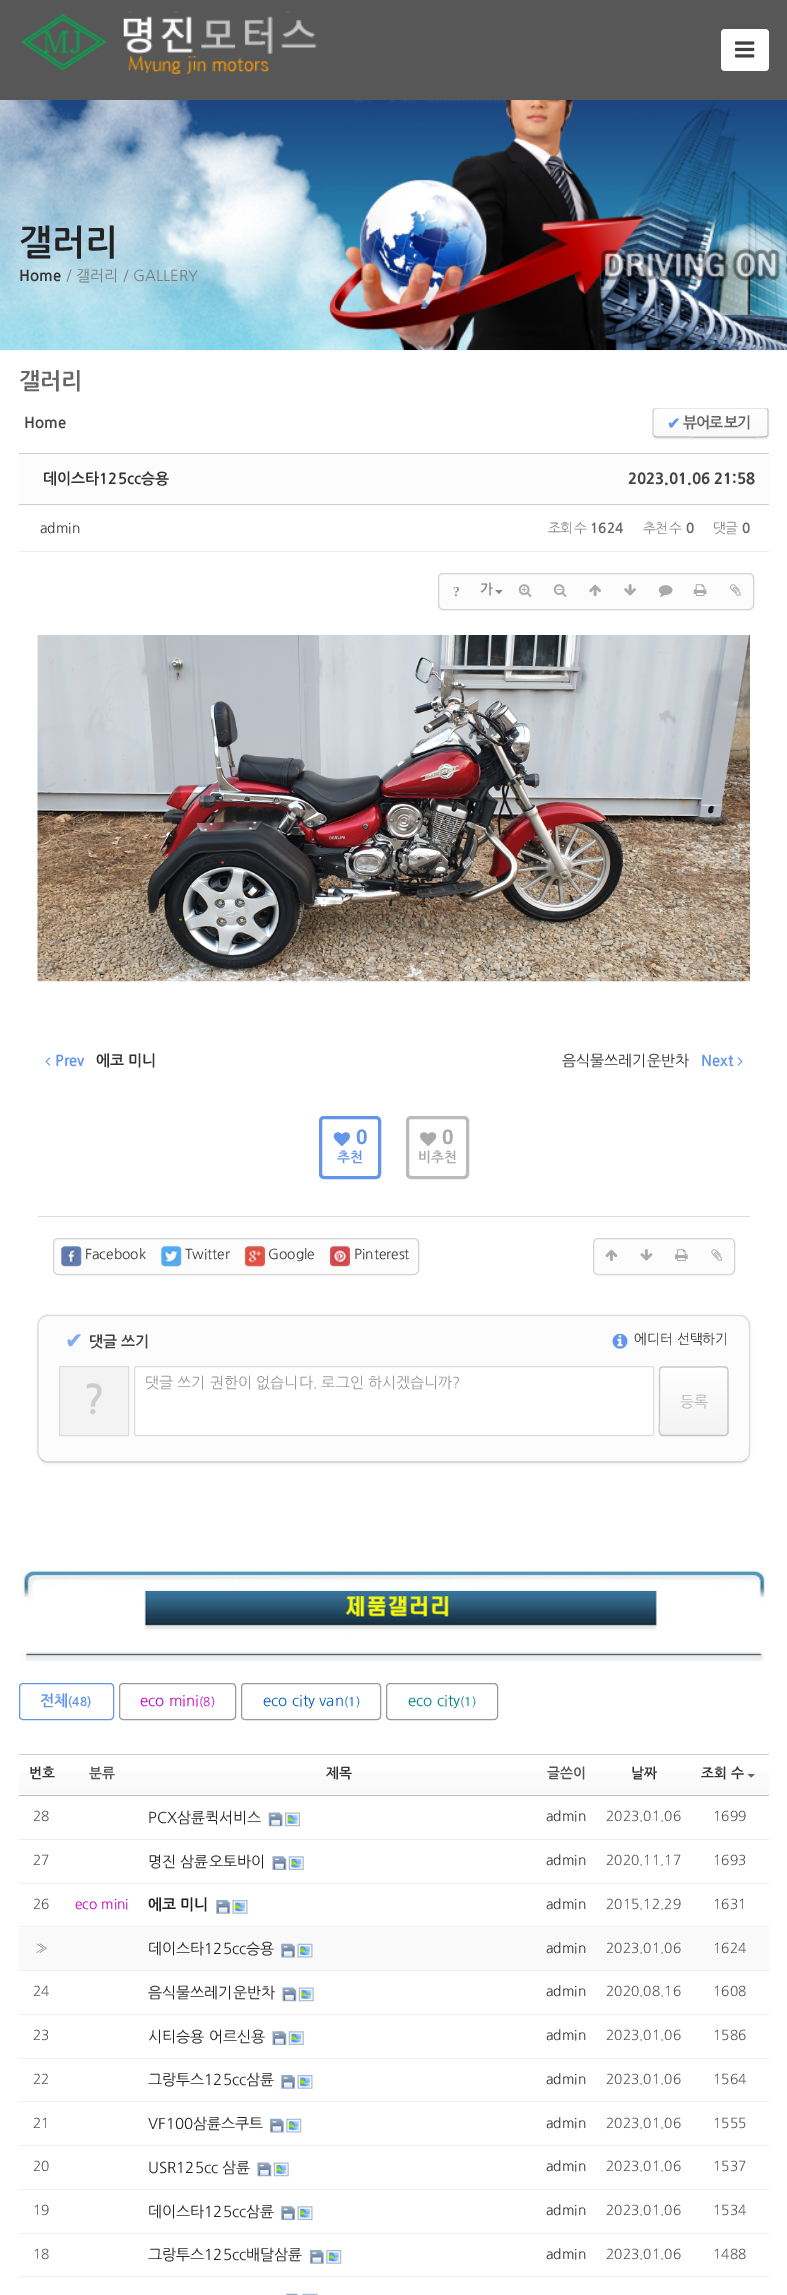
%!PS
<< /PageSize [787 2295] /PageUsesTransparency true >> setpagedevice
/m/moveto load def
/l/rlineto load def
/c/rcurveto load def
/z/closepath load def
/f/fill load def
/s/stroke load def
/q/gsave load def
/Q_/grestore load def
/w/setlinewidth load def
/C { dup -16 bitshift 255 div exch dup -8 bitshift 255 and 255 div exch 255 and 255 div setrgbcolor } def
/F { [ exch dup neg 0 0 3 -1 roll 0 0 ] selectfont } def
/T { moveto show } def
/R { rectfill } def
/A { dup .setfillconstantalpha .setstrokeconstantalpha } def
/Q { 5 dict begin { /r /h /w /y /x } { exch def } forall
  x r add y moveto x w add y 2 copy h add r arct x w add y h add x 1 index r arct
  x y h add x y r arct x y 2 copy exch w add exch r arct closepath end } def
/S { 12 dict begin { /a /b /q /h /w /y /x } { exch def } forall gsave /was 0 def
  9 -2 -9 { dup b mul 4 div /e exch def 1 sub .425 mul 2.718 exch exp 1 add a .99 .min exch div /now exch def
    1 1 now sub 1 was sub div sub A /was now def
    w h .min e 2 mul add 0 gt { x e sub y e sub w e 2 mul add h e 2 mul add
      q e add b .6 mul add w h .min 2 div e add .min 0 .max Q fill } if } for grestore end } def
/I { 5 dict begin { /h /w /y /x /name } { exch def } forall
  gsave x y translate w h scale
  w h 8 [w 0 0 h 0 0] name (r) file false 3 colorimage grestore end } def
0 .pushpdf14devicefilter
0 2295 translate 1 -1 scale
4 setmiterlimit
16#FFFFFF C
0 0 787 2295 R
16#575758 C
0 0 787 100 R
(1.rgb) 21 11 296 63 I
16#FFFFFF C
721 29 48 42 4 Q f
(2.rgb) 735 41 20 17 I
(3.rgb) 0 100 787 250 I
16#F7F7F7 C
0 350 787 1 R
/NanumGothic-Bold 35 F
16#222222 C
(갤러리) 19 255 T
/NanumGothic-Bold 15 F
16#333333 C
(Home) 19 281 T
/NanumGothic-Regular 15 F
16#7C7C7C C
(/ 갤러리) 66 281 T
(/ GALLERY) 123 281 T
/NanumGothic-Bold 22.5 F
16#666666 C
(갤러리) 19 389 T
/NanumGothic-Bold 15 F
16#444444 C
(Home) 24 428 T
16#000000 C
653 409 116 30 4 .5 .1 S
q
653 408 116 30 4 Q clip newpath
q 653 408 m 116 0 l 0 1 l -116 0 l z clip newpath
<< /ShadingType 2 /ColorSpace /DeviceRGB /Coords [711 381 711 409] /Extend [true true] /Function << /FunctionType 2 /Domain [0 1] /C0 [1 1 1] /C1 [.976 .976 .976] /N 1 >> >> shfill Q_
q 653 409 m 116 0 l 0 27 l -116 0 l z clip newpath
<< /ShadingType 2 /ColorSpace /DeviceRGB /Coords [711 409 711 436] /Extend [true true] /Function << /FunctionType 2 /Domain [0 1] /C0 [1 1 1] /C1 [.976 .976 .976] /N 1 >> >> shfill Q_
q 653 436 m 116 0 l 0 2 l -116 0 l z clip newpath
<< /ShadingType 2 /ColorSpace /DeviceRGB /Coords [711 436 711 464] /Extend [true true] /Function << /FunctionType 2 /Domain [0 1] /C0 [1 1 1] /C1 [.976 .976 .976] /N 1 >> >> shfill Q_
Q_
q
19 408 750 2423 rectclip
16#DDDDDD C
1.2 w
654 409 m .5 -.5 l 2.5 -1.5 83 -.5 92.5 -.5 c 18 0 l 2 1 l s
Q_
16#CCCCCC C
1.2 w
767 409 m 1 .5 1 1.5 1 2 c 0 23 l 0 .5 0 1.5 -1 2 c s
16#BBBBBB C
767 436 m -.5 .5 l -2 1.5 -82.5 .5 -92 .5 c -18.5 0 l -2 -1 l s
16#D6D6D6 C
654 436 m -.5 -.5 -1 -1.5 -1 -2 c 0 -23 l 0 -.5 .5 -1.5 1 -2 c s
/DejaVuSans-Bold 16 F
16#6495ED C
667 429 m -1.25 0 (✔) ashow
/NanumGothic-Bold 15 F
16#666666 C
683 428 m -1.25 0 (뷰어로 보기) ashow
16#FCFCFC C
19 454 750 50 R
16#CCCCCC C
19 453 750 1 R
19 504 750 1 R
16#333333 C
(데이스타125cc승용) 43 484 T
/NanumGothic-ExtraBold 15 F
16#444444 C
(2023.01.06 21:58) 628 484 T
16#EEEEEE C
19 551 750 1 R
/NanumGothic-Regular 13.75 F
16#333333 C
(admin) 40 533 T
/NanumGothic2-Regular 13.75 F
16#888888 C
548 533 m -1.25 0 (조회 수) ashow
/NanumGothic2-Bold 13.75 F
16#666666 C
(1624) 590 533 T
/NanumGothic2-Regular 13.75 F
16#888888 C
643 533 m -1.25 0 (추천 수) ashow
/NanumGothic2-Bold 13.75 F
16#666666 C
(0) 686 533 T
/NanumGothic2-Regular 13.75 F
16#888888 C
713 533 m -1.25 0 (댓글) ashow
/NanumGothic2-Bold 13.75 F
16#666666 C
(0) 742 533 T
16#FCFCFC C
438.5 573.5 315 36 4.5 Q q f Q_
16#D3D3D3 C
1 w
s
/LiberationSerif-Bold 13.75 F
16#999999 C
453 596 m -1.25 0 (?) ashow
/NanumGothic-Bold 13.75 F
16#888888 C
480 594 m -1.25 0 (가) ashow
495 590 m 7.5 0 l -3.5 4 l z f
(4.rgb) 518 584 14 13 I
(5.rgb) 553 584 14 13 I
(6.rgb) 589 584 12 12 I
(7.rgb) 624 584 12 12 I
(8.rgb) 658 585 15 12 I
(9.rgb) 693 584 14 12 I
(10.rgb) 730 584 11 12 I
(11.rgb) 37 635 713 347 I
(12.rgb) 45 1057 6 9 I
/NanumGothic-Bold 15 F
16#6495ED C
(Prev) 55 1066 T
16#333333 C
(에코 미니) 96 1066 T
/NanumGothic-Regular 15 F
(음식물쓰레기운반차) 562 1066 T
/NanumGothic-Bold 15 F
16#6495ED C
(Next) 701 1066 T
(13.rgb) 737 1057 6 9 I
3 w
320.5 1117.5 59 60 3.5 Q s
(14.rgb) 333 1132 17 15 I
/LiberationSans-Bold 21 F
(0) 356 1144 T
/NanumGothic-Bold 13.75 F
(추천) 337 1162 T
16#BBBBBB C
407.5 1117.5 60 60 3.5 Q s
(15.rgb) 420 1132 17 14 I
/LiberationSans-Bold 21 F
16#AAAAAA C
(0) 442 1144 T
/NanumGothic-Bold 13.75 F
(비추천) 418 1162 T
16#DDDDDD C
38 1216 712 1 R
16#FCFCFC C
53.5 1238.5 365 36 4.5 Q q f Q_
16#D3D3D3 C
1 w
s
(16.rgb) 61 1246 21 21 I
/NanumGothic-Regular 13.75 F
16#333333 C
(Facebook) 85 1259 T
(17.rgb) 161 1246 21 21 I
(Twitter) 185 1259 T
(18.rgb) 245 1246 20 21 I
(Google) 268 1259 T
(19.rgb) 330 1246 20 21 I
(Pinterest) 354 1259 T
16#FCFCFC C
593.5 1238.5 141 36 4.5 Q q f Q_
16#D3D3D3 C
s
(20.rgb) 605 1249 13 12 I
(21.rgb) 640 1249 13 12 I
(22.rgb) 675 1249 13 12 I
(23.rgb) 711 1249 11 12 I
16#000000 C
39 1318 710 145 9 2 .1 S
16#FCFCFC C
38 1315 712 148 10 Q f
16#CCCCCC C
1.2 w
746.5 1459 m -1.5 2 -4 3 -6.5 3 c -692.5 0 l -2.5 0 -5 -1 -6.5 -3 c s
16#DDDDDD C
41 1459 m -2 -1.5 -3 -4 -3 -6.5 c 0 -127.5 l 0 -2.5 1 -5 3 -6.5 c 1.5 -2 4 -3 6.5 -3 c 692.5 0 l 2.5 0 5 1 6.5 3 c 2 1.5 3 4 3 6.5 c 0 127.5 l 0 2.5 -1 5 -3 6.5 c s
/DejaVuSans-Bold 21 F
16#82AAF0 C
(✔) 65 1348 T
/NanumGothic-Bold 15 F
16#444444 C
(댓글 쓰기) 89 1347 T
(24.rgb) 612 1333 16 16 I
/NanumGothic-Regular 13.75 F
16#333333 C
(에디터 선택하기) 634 1344 T
16#F3F3F3 C
59.5 1366.5 m 69 0 l 0 69 l -69 0 l z q f Q_
16#DDDDDD C
1 w
s
/NanumGothic2-Bold 40 F
16#CCCCCC C
(?) 83 1414 T
16#FFFFFF C
134.5 1366.5 519 69 2 Q q f Q_
16#DDDDDD C
s
/NanumGothic-Regular 15 F
16#999999 C
(댓글 쓰기 권한이 없습니다. 로그인 하시겠습니까?) 145 1388 T
q
659 1366 70 70 4 Q clip newpath
q 659 1366 m 70 0 l 0 2 l -70 0 l z clip newpath
<< /ShadingType 2 /ColorSpace /DeviceRGB /Coords [694 1300 694 1368] /Extend [true true] /Function << /FunctionType 2 /Domain [0 1] /C0 [1 1 1] /C1 [.953 .953 .953] /N 1 >> >> shfill Q_
q 659 1368 m 70 0 l 0 67 l -70 0 l z clip newpath
<< /ShadingType 2 /ColorSpace /DeviceRGB /Coords [694 1368 694 1435] /Extend [true true] /Function << /FunctionType 2 /Domain [0 1] /C0 [1 1 1] /C1 [.953 .953 .953] /N 1 >> >> shfill Q_
q 659 1435 m 70 0 l 0 1 l -70 0 l z clip newpath
<< /ShadingType 2 /ColorSpace /DeviceRGB /Coords [694 1435 694 1503] /Extend [true true] /Function << /FunctionType 2 /Domain [0 1] /C0 [1 1 1] /C1 [.953 .953 .953] /N 1 >> >> shfill Q_
Q_
16#C6C6C6 C
1.2 w
727 1368 m 1 2 l 0 62.5 l -1 2 l s
16#C3C3C3 C
727 1434.5 m -2 1 l -62.5 0 l -2 -1 l s
16#CCCCCC C
660.5 1434.5 m -2.5 -2.5 -1 -12 -1 -12.5 c 0 -41.5 l 0 -15.5 -2 -13.5 13.5 -13.5 c 41.5 0 l .5 0 10 -1.5 12.5 1 c s
/NanumGothic2-Regular 15 F
16#B3B3B3 C
(등록) 680 1407 T
(25.rgb) 20 1569 745 93 I
16#6495ED C
1 w
19.5 1683.5 94 36 3.5 Q s
/NanumGothic-Bold 15 F
(전체) 40 1706 T
/NanumGothic-Bold 12 F
(\(48\)) 68 1706 T
16#999999 C
119.5 1683.5 116 36 3.5 Q s
/NanumGothic-Regular 15 F
16#BF00BF C
(eco mini) 140 1706 T
/NanumGothic-Regular 12 F
(\(8\)) 199 1706 T
16#999999 C
241.5 1683.5 139 36 3.5 Q s
/NanumGothic-Regular 15 F
16#005FBF C
(eco city van) 263 1706 T
/NanumGothic-Regular 12 F
(\(1\)) 344 1706 T
16#999999 C
386.5 1683.5 111 36 3.5 Q s
/NanumGothic-Regular 15 F
16#007F7F C
(eco city) 408 1706 T
/NanumGothic-Regular 12 F
(\(1\)) 460 1706 T
q 19 1772 m 750 0 l 0 22 l -750 0 l z clip newpath
<< /ShadingType 2 /ColorSpace /DeviceRGB /Coords [394 1754 394 1796] /Extend [true true] /Function << /FunctionType 2 /Domain [0 1] /C0 [1 1 1] /C1 [.976 .976 .976] /N 1 >> >> shfill Q_
/NanumGothic-Bold 13.75 F
16#333333 C
(번호) 29 1778 T
16#555555 C
(분류) 89 1778 T
16#333333 C
(제목) 326 1778 T
16#555555 C
(글쓴이) 547 1778 T
16#333333 C
(날짜) 631 1778 T
16#CCCCCC C
19 1754 750 1 R
16#BBBBBB C
19 1795 750 1 R
16#333333 C
(조회 수) 701 1778 T
16#666666 C
747.5 1774 m 7.5 0 l -4 3.5 l z f
/NanumGothic-Regular 13.75 F
16#555555 C
(28) 33 1821 T
/NanumGothic-Regular 15 F
16#222222 C
(PCX삼륜퀵서비스) 148 1823 T
(26.rgb) 268 1812 15 15 I
(27.rgb) 285 1812 15 15 I
/NanumGothic-Regular 13.75 F
16#333333 C
(admin) 546 1821 T
16#555555 C
(2023.01.06) 606 1821 T
16#EEEEEE C
19 1839 750 1 R
16#555555 C
(1699) 713 1821 T
(27) 33 1865 T
/NanumGothic-Regular 15 F
16#222222 C
(명진 삼륜오토바이) 148 1867 T
(28.rgb) 272 1856 15 14 I
(29.rgb) 288 1856 16 14 I
/NanumGothic-Regular 13.75 F
16#333333 C
(admin) 546 1865 T
16#555555 C
(2020.11.17) 606 1865 T
16#EEEEEE C
19 1883 750 1 R
16#555555 C
(1693) 713 1865 T
(26) 33 1909 T
16#BF00BF C
(eco mini) 75 1909 T
/NanumGothic-Bold 15 F
16#222222 C
(에코 미니) 148 1910 T
(30.rgb) 216 1900 14 14 I
(31.rgb) 232 1900 16 14 I
/NanumGothic-Regular 13.75 F
16#333333 C
(admin) 546 1909 T
16#555555 C
(2015.12.29) 606 1909 T
16#EEEEEE C
19 1926 750 1 R
16#555555 C
(1631) 713 1909 T
16#F9F9F9 C
19 1928 750 42 R
16#555555 C
(») 35 1953 T
/NanumGothic-Regular 15 F
16#222222 C
(데이스타125cc승용) 148 1954 T
(32.rgb) 281 1943 14 15 I
(33.rgb) 297 1943 16 15 I
/NanumGothic-Regular 13.75 F
16#333333 C
(admin) 546 1953 T
16#555555 C
(2023.01.06) 606 1953 T
16#EEEEEE C
19 1970 750 1 R
16#555555 C
(1624) 713 1953 T
(24) 33 1996 T
/NanumGothic-Regular 15 F
16#222222 C
(음식물쓰레기운반차) 148 1998 T
(34.rgb) 282 1987 15 15 I
(35.rgb) 298 1987 16 15 I
/NanumGothic-Regular 13.75 F
16#333333 C
(admin) 546 1996 T
16#555555 C
(2020.08.16) 606 1996 T
16#EEEEEE C
19 2014 750 1 R
16#555555 C
(1608) 713 1996 T
(23) 33 2040 T
/NanumGothic-Regular 15 F
16#222222 C
(시티승용 어르신용) 148 2042 T
(36.rgb) 272 2031 15 14 I
(37.rgb) 288 2031 16 14 I
/NanumGothic-Regular 13.75 F
16#333333 C
(admin) 546 2040 T
16#555555 C
(2023.01.06) 606 2040 T
16#EEEEEE C
19 2058 750 1 R
16#555555 C
(1586) 713 2040 T
(22) 33 2084 T
/NanumGothic-Regular 15 F
16#222222 C
(그랑투스125cc삼륜) 148 2085 T
(30.rgb) 281 2075 14 14 I
(31.rgb) 297 2075 16 14 I
/NanumGothic-Regular 13.75 F
16#333333 C
(admin) 546 2084 T
16#555555 C
(2023.01.06) 606 2084 T
16#EEEEEE C
19 2101 750 1 R
16#555555 C
(1564) 713 2084 T
(21) 33 2128 T
/NanumGothic-Regular 15 F
16#222222 C
(VF100삼륜스쿠트) 148 2129 T
(38.rgb) 270 2118 14 15 I
(39.rgb) 286 2118 16 15 I
/NanumGothic-Regular 13.75 F
16#333333 C
(admin) 546 2128 T
16#555555 C
(2023.01.06) 606 2128 T
16#EEEEEE C
19 2145 750 1 R
16#555555 C
(1555) 713 2128 T
(20) 33 2171 T
/NanumGothic-Regular 15 F
16#222222 C
(USR125cc 삼륜) 148 2173 T
(40.rgb) 257 2162 15 15 I
(41.rgb) 273 2162 16 15 I
/NanumGothic-Regular 13.75 F
16#333333 C
(admin) 546 2171 T
16#555555 C
(2023.01.06) 606 2171 T
16#EEEEEE C
19 2189 750 1 R
16#555555 C
(1537) 713 2171 T
(19) 33 2215 T
/NanumGothic-Regular 15 F
16#222222 C
(데이스타125cc삼륜) 148 2217 T
(42.rgb) 281 2206 14 14 I
(43.rgb) 297 2206 16 14 I
/NanumGothic-Regular 13.75 F
16#333333 C
(admin) 546 2215 T
16#555555 C
(2023.01.06) 606 2215 T
16#EEEEEE C
19 2233 750 1 R
16#555555 C
(1534) 713 2215 T
(18) 33 2259 T
/NanumGothic-Regular 15 F
16#222222 C
(그랑투스125cc배달삼륜) 148 2260 T
(44.rgb) 310 2250 14 14 I
(45.rgb) 326 2250 16 14 I
/NanumGothic-Regular 13.75 F
16#333333 C
(admin) 546 2259 T
16#555555 C
(2023.01.06) 606 2259 T
16#EEEEEE C
19 2276 750 1 R
16#555555 C
(1488) 713 2259 T
(46.rgb) 286 2293 13 2 I
(47.rgb) 302 2293 16 2 I
.poppdf14devicefilter showpage
